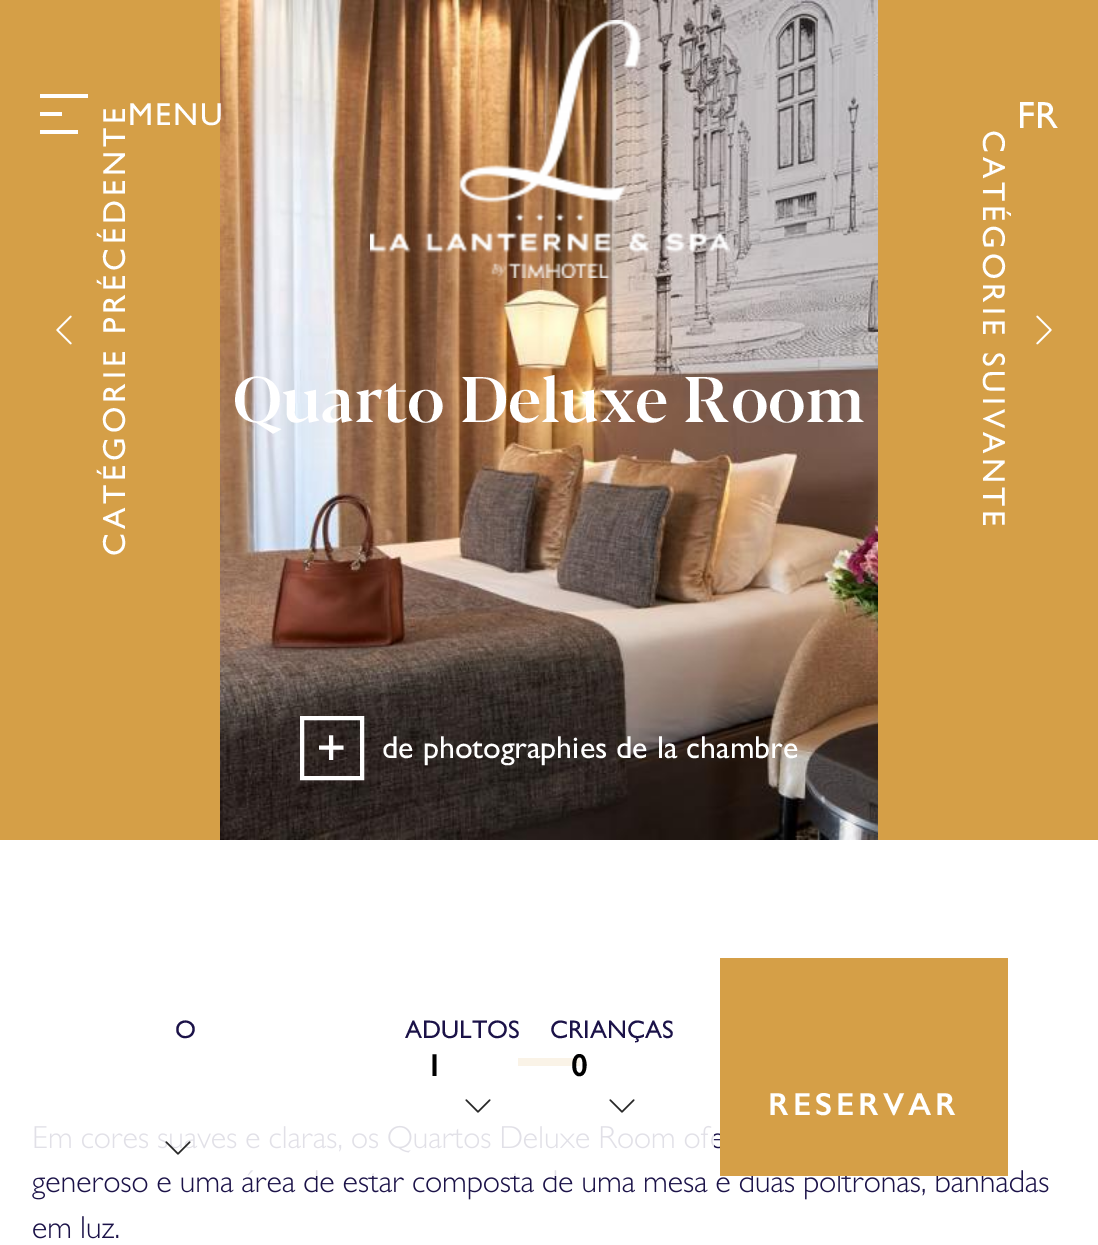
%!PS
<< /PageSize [1098 1245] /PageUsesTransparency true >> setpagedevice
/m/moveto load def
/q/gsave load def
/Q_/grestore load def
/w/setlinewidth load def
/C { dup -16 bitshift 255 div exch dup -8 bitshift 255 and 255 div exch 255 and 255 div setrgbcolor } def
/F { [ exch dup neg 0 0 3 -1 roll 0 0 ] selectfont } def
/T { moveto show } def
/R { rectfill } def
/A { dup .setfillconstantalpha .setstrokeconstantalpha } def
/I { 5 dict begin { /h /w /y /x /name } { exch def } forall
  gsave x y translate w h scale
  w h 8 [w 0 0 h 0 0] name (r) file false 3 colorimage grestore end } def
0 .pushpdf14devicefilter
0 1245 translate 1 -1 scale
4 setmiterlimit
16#FFFFFF C
0 0 1098 1245 R
16#D59F47 C
0 0 220 840 R
16#FFFFFF C
40 94 48 4 R
40 112 22 4 R
40 130 38 4 R
(2.rgb) 220 0 658 840 I
/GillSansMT-Regular 32 F
128 125 m 2 0 (MENU) ashow
(1.rgb) 370 20 360 258 I
16#D59F47 C
878 0 220 840 R
/GillSansMT-Regular 38 F
16#FFFFFF C
(FR) 1017 128 T
(3.rgb) 56 315 16 30 I
/GillSansMT-Regular 32 F
q 125 556 translate -90 rotate 0 0 m 4 0 (CATÉGORIE PRÉCÉDENTE) ashow Q_
/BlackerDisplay-Medium 64 F
(Quarto Deluxe Room) 233 422 T
/GillSansMT-Regular 32 F
q 983 130 translate 90 rotate 0 0 m 4 0 (CATÉGORIE SUIVANTE) ashow Q_
(4.rgb) 1036 315 16 30 I
4 w
302 718 60 60 rectstroke
/GillSansMT-Regular 52 F
(+) 316 766 T
/GillSansMT-Regular 32 F
(de photographies de la chambre) 382 758 T
16#D59F47 C
518 1058 62 8 R
(7.rgb) 34 1125 686 28 I
(8.rgb) 32 1170 1017 30 I
0.87 A
16#FFFFFF C
34 1058 680 118 R
/GillSansMT-Regular 25.5 F
1 A
16#1B1248 C
(O) 175 1038 T
(5.rgb) 165 1141 26 14 I
(ADULTOS) 405 1038 T
/GillSans-SemiBold 32 F
16#000000 C
(1) 426 1076 T
(6.rgb) 465 1099 26 14 I
/GillSansMT-Regular 25.5 F
16#1B1248 C
(CRIANÇAS) 550 1038 T
/GillSans-SemiBold 32 F
16#000000 C
(0) 571 1076 T
(6.rgb) 609 1099 26 14 I
16#D59F47 C
720 958 288 218 R
(9.rgb) 33 1216 86 23 I
16#FFFFFF C
768 1115 m 4 0 (RESERVAR) ashow
.poppdf14devicefilter showpage
